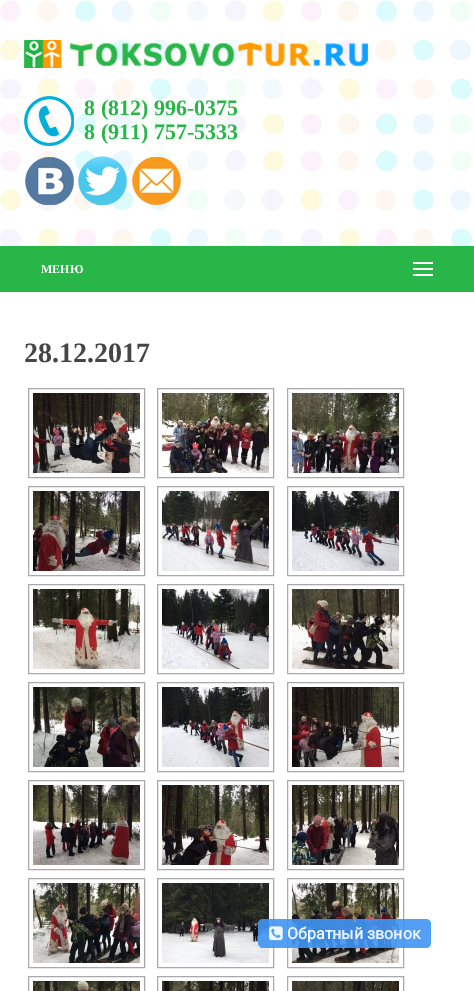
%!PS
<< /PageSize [474 991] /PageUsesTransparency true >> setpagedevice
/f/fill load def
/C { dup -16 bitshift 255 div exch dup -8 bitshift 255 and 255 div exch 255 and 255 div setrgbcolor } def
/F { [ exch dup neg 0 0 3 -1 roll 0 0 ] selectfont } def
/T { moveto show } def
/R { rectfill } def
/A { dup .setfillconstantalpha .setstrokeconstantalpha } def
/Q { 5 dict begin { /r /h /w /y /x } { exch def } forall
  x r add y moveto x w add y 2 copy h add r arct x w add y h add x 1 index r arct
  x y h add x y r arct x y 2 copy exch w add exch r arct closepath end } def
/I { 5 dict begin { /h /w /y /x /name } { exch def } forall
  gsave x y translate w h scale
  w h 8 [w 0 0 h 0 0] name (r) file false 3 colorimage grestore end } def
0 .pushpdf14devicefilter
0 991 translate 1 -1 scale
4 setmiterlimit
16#FFFFFF C
0 0 474 991 R
(1.rgb) 0 0 472 246 I
(2.rgb) 24 40 344 28 I
(3.rgb) 24 96 50 50 I
/LiberationSerif-Bold 22 F
16#28B648 C
(8 \(812\) 996-0375) 84 115 T
(8 \(911\) 757-5333) 84 139 T
(4.rgb) 25 157 49 48 I
(5.rgb) 78 156 49 49 I
(6.rgb) 132 157 49 48 I
0 246 474 46 R
16#FFFFFF C
413 262 20 2 R
/LiberationSerif-Bold 12 F
(МЕНЮ) 41 273 T
413 268 20 2 R
413 274 20 2 R
/LiberationSerif-Bold 28 F
16#454545 C
(28.12.2017) 24 362 T
16#A9A9A9 C
28.5 388.5 116 89 rectstroke
(7.rgb) 33 393 107 80 I
157.5 388.5 116 89 rectstroke
(8.rgb) 162 393 107 80 I
287.5 388.5 116 89 rectstroke
(9.rgb) 292 393 107 80 I
28.5 486.5 116 89 rectstroke
(10.rgb) 33 491 107 80 I
157.5 486.5 116 89 rectstroke
(11.rgb) 162 491 107 80 I
287.5 486.5 116 89 rectstroke
(12.rgb) 292 491 107 80 I
28.5 584.5 116 89 rectstroke
(13.rgb) 33 589 107 80 I
157.5 584.5 116 89 rectstroke
(14.rgb) 162 589 107 80 I
287.5 584.5 116 89 rectstroke
(15.rgb) 292 589 107 80 I
28.5 682.5 116 89 rectstroke
(16.rgb) 33 687 107 80 I
157.5 682.5 116 89 rectstroke
(17.rgb) 162 687 107 80 I
287.5 682.5 116 89 rectstroke
(18.rgb) 292 687 107 80 I
28.5 780.5 116 89 rectstroke
(19.rgb) 33 785 107 80 I
157.5 780.5 116 89 rectstroke
(20.rgb) 162 785 107 80 I
287.5 780.5 116 89 rectstroke
(21.rgb) 292 785 107 80 I
28.5 878.5 116 89 rectstroke
(22.rgb) 33 883 107 80 I
157.5 878.5 116 89 rectstroke
(23.rgb) 162 883 107 80 I
287.5 878.5 116 89 rectstroke
(24.rgb) 292 883 107 80 I
28.5 976.5 116 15 rectstroke
(25.rgb) 33 981 107 10 I
157.5 976.5 116 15 rectstroke
(26.rgb) 162 981 107 10 I
287.5 976.5 116 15 rectstroke
(27.rgb) 292 981 107 10 I
0.9 A
16#4095F4 C
258 919 173 29 5 Q f
1 A
(28.rgb) 269 926 14 15 I
/Roboto-Bold 16 F
16#ECF4FD C
(Обратный звонок) 287 939 T
.poppdf14devicefilter showpage
